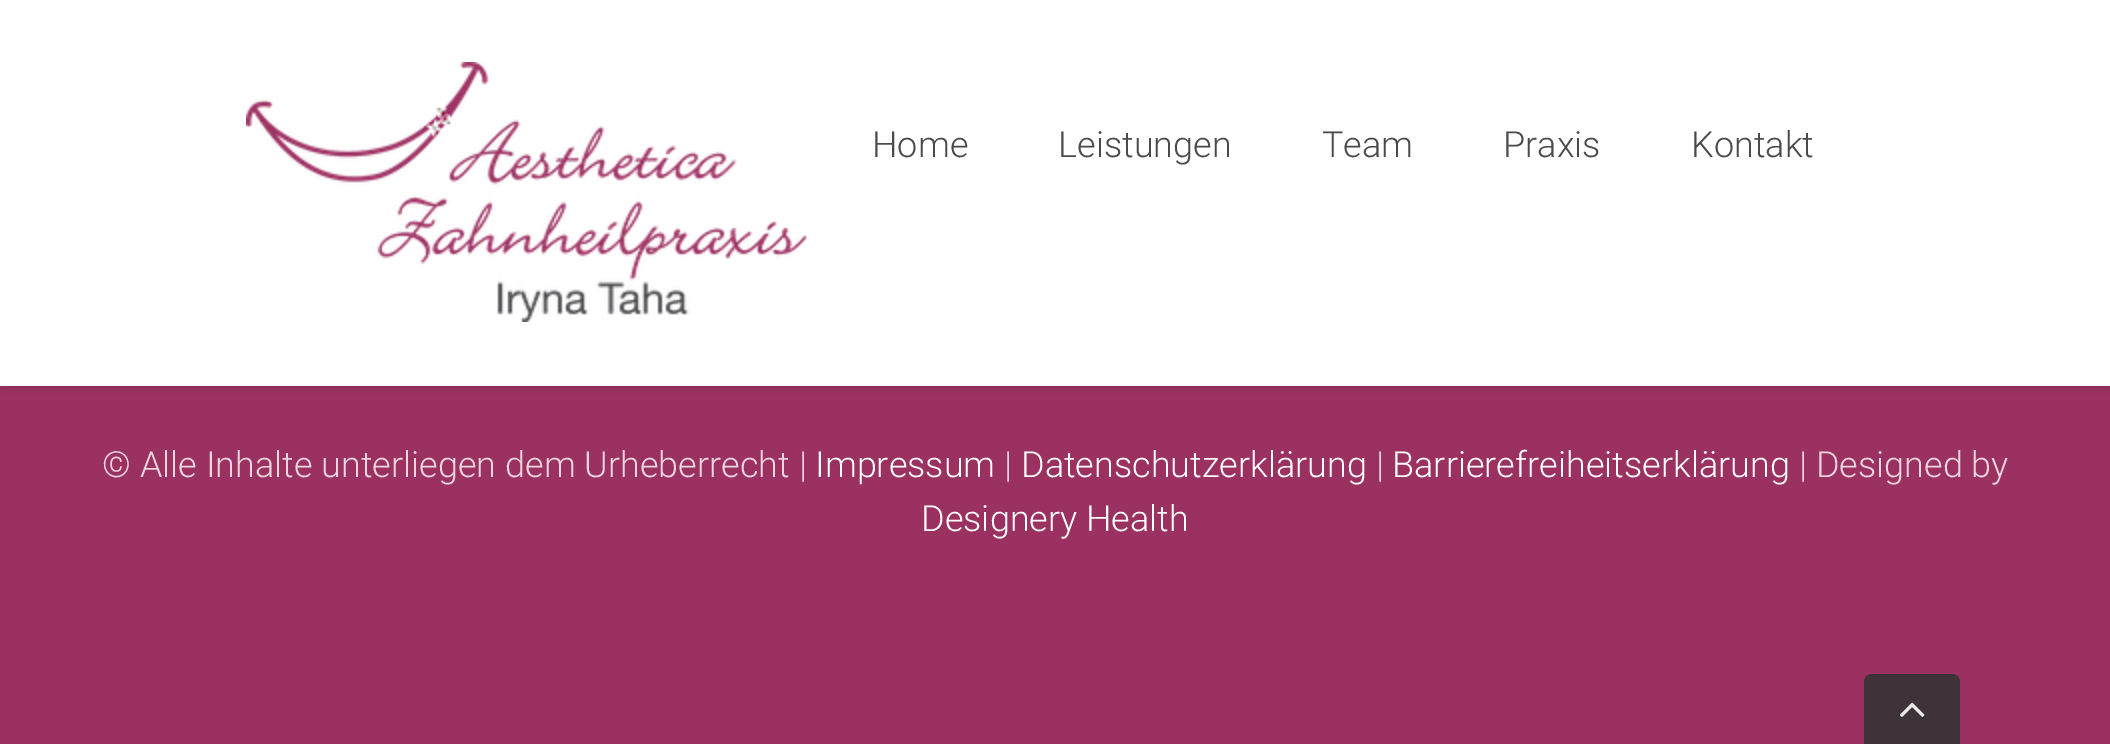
%!PS
<< /PageSize [2110 744] /PageUsesTransparency true >> setpagedevice
/m/moveto load def
/l/rlineto load def
/c/rcurveto load def
/z/closepath load def
/f/fill load def
/C { dup -16 bitshift 255 div exch dup -8 bitshift 255 and 255 div exch 255 and 255 div setrgbcolor } def
/F { [ exch dup neg 0 0 3 -1 roll 0 0 ] selectfont } def
/T { moveto show } def
/R { rectfill } def
/A { dup .setfillconstantalpha .setstrokeconstantalpha } def
/Q { 5 dict begin { /r /h /w /y /x } { exch def } forall
  x r add y moveto x w add y 2 copy h add r arct x w add y h add x 1 index r arct
  x y h add x y r arct x y 2 copy exch w add exch r arct closepath end } def
/S { 12 dict begin { /a /b /q /h /w /y /x } { exch def } forall gsave /was 0 def
  9 -2 -9 { dup b mul 4 div /e exch def 1 sub .425 mul 2.718 exch exp 1 add a .99 .min exch div /now exch def
    1 1 now sub 1 was sub div sub A /was now def
    w h .min e 2 mul add 0 gt { x e sub y e sub w e 2 mul add h e 2 mul add
      q e add b .6 mul add w h .min 2 div e add .min 0 .max Q fill } if } for grestore end } def
/I { 5 dict begin { /h /w /y /x /name } { exch def } forall
  gsave x y translate w h scale
  w h 8 [w 0 0 h 0 0] name (r) file false 3 colorimage grestore end } def
0 .pushpdf14devicefilter
0 744 translate 1 -1 scale
4 setmiterlimit
16#9A3160 C
0 0 2110 744 R
16#000000 C
0 2 2110 386 0 3 .12 S
16#FFFFFF C
0 0 2110 386 R
(1.rgb) 246 62 561 260 I
/Roboto-Light 36 F
16#4A4A4A C
(Home) 872 157 T
(Leistungen) 1058 157 T
(Team) 1322 157 T
(Praxis) 1503 157 T
(Kontakt) 1691 157 T
16#EBD6DF C
(© Alle Inhalte unterliegen dem Urheberrecht |) 102 477 T
16#FFFFFF C
(Impressum) 815 477 T
16#EBD6DF C
(|) 1004 477 T
16#FFFFFF C
(Datenschutzerklärung) 1021 477 T
16#EBD6DF C
(|) 1376 477 T
16#FFFFFF C
(Barrierefreiheitserklärung) 1392 477 T
16#EBD6DF C
(| Designed by) 1799 477 T
16#FFFFFF C
(Designery Health) 921 531 T
16#3D3338 C
1872 674 m 80 0 l 4.5 0 8 3.5 8 8 c 0 62 l -96 0 l 0 -62 l 0 -4.5 3.5 -8 8 -8 c z f
(2.rgb) 1900 702 25 15 I
.poppdf14devicefilter showpage
